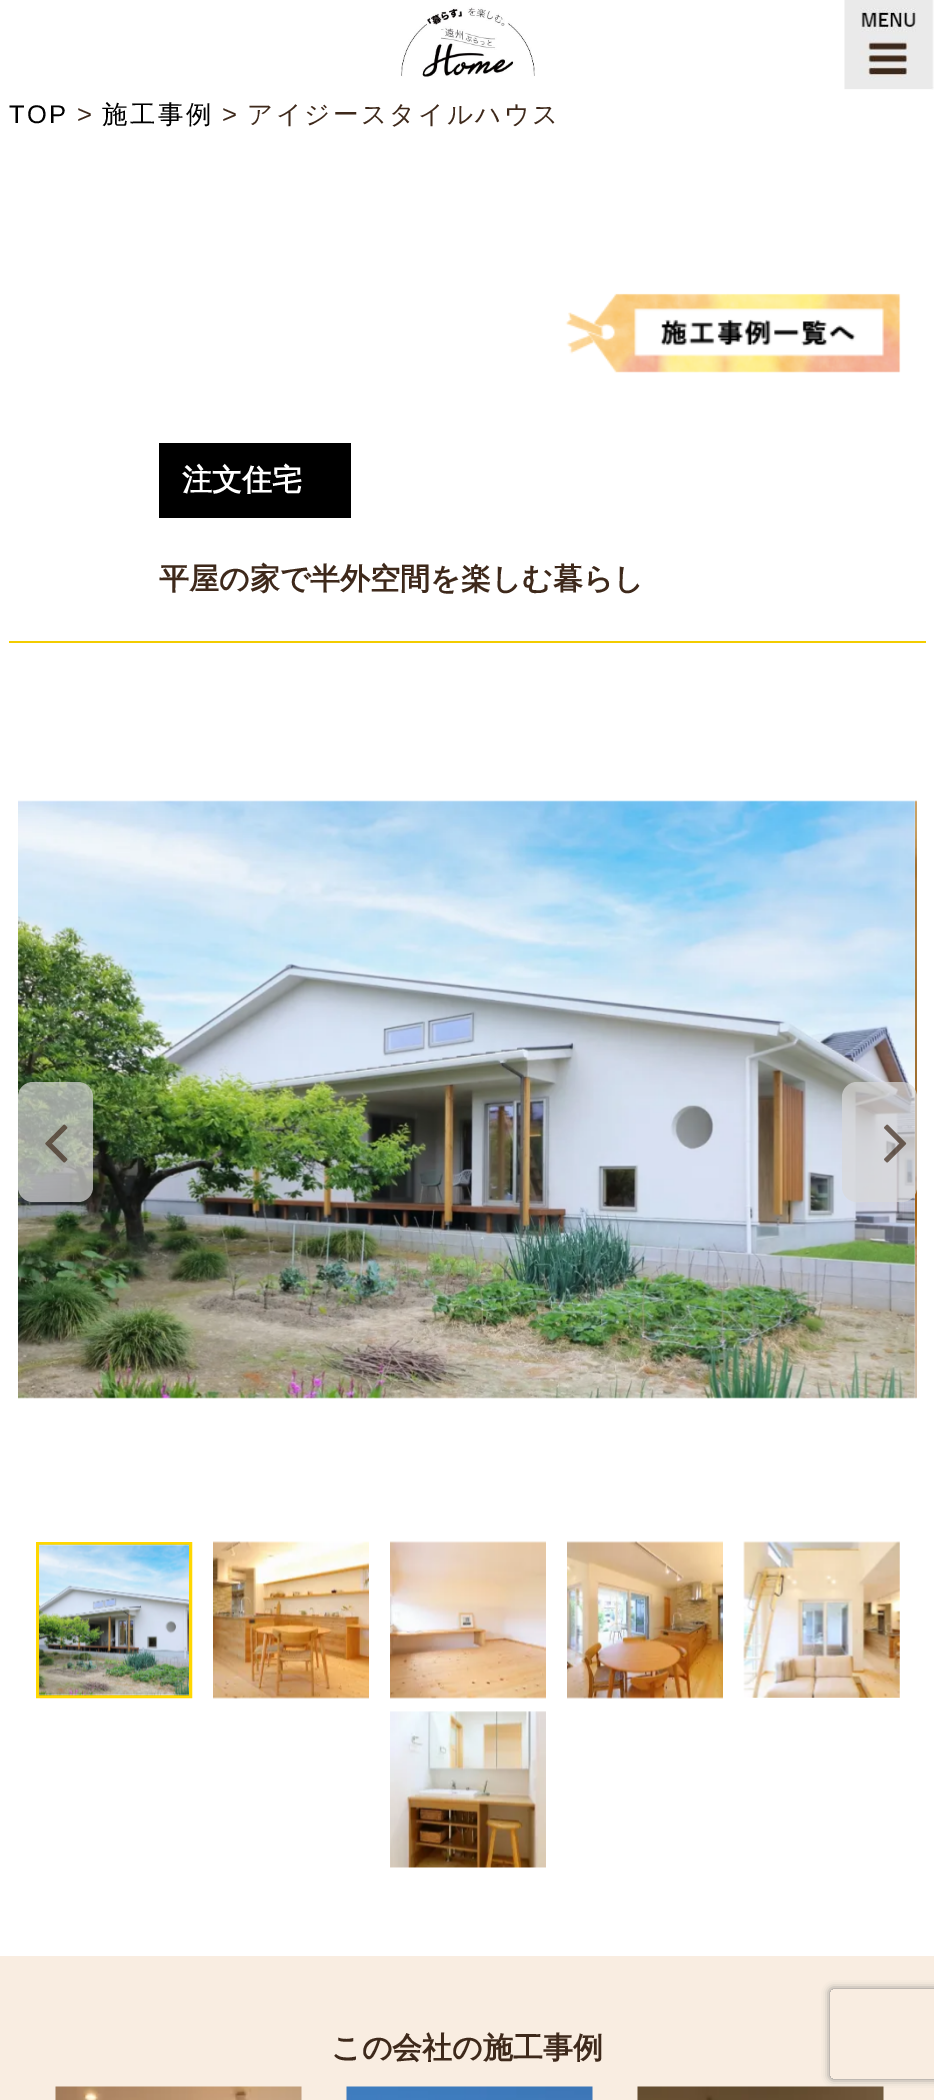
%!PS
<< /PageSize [934 2100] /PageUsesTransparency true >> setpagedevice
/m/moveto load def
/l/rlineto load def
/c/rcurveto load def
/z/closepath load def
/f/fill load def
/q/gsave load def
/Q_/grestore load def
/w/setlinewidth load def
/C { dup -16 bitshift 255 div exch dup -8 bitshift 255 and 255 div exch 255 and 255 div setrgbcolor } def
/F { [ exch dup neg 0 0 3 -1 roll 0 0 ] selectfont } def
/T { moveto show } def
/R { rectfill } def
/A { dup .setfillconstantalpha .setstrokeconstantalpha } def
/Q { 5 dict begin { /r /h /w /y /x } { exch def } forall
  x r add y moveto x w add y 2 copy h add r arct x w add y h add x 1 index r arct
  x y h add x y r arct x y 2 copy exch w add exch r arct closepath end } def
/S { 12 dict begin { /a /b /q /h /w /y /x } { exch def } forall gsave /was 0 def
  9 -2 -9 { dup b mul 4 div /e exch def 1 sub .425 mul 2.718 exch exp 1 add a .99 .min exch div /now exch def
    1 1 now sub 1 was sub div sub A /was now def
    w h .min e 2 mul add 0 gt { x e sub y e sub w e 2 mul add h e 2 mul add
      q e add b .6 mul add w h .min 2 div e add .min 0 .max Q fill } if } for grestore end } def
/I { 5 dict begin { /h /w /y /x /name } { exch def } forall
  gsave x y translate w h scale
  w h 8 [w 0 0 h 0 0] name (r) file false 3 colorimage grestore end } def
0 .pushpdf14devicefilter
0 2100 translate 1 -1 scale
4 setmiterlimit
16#FFFFFF C
0 0 934 2100 R
(1.rgb) 401 7 134 70 I
(2.rgb) 844 0 90 90 I
/LiberationSans-Regular 25.5 F
16#000000 C
9 123 m 2.5 0 (TOP) ashow
16#3E291B C
77 123 m 2.5 0 (>) ashow
/WenQuanYiZenHei-Medium 25.5 F
16#000000 C
102 123 m 2.5 0 (施工事例) ashow
/LiberationSans-Regular 25.5 F
16#3E291B C
222 123 m 2.5 0 (>) ashow
/WenQuanYiZenHei-Medium 25.5 F
247 123 m 2.5 0 (アイジースタイルハウス) ashow
(3.rgb) 565 293 336 80 I
16#000000 C
159 443 192 75 R
/WenQuanYiZenHei-Bold 30 F
16#FFFFFF C
(注文住宅) 182 490 T
16#3E291B C
(平屋の家で半外空間を楽しむ暮らし) 159 589 T
16#F3CC00 C
9 641 917 2 R
(4.rgb) 18 800 898 599 I
(5.rgb) 915 800 2 599 I
0.7 A
16#D8D8D8 C
18 1082 75 120 15 Q f
1 A
(6.rgb) 45 1124 23 39 I
0.7 A
842 1082 75 120 15 Q f
1 A
(7.rgb) 884 1124 23 39 I
16#FFD700 C
3 w
37.5 1543.5 153 153 rectstroke
(8.rgb) 39 1544 150 152 I
(9.rgb) 213 1541 156 158 I
(10.rgb) 390 1541 156 158 I
(11.rgb) 567 1541 156 158 I
(12.rgb) 743 1541 157 157 I
(13.rgb) 390 1711 156 157 I
16#F9EDE1 C
0 1956 934 144 R
16#3E291B C
(この会社の施工事例) 331 2058 T
(14.rgb) 55 2086 247 14 I
(15.rgb) 346 2086 247 14 I
(16.rgb) 637 2086 247 14 I
q
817 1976 m 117 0 l 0 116 l -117 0 l z 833 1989 m 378 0 l 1.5 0 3 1.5 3 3 c 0 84 l 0 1.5 -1.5 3 -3 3 c -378 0 l -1.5 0 -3 -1.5 -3 -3 c 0 -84 l 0 -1.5 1.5 -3 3 -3 c z eoclip newpath
16#808080 C
830 1989 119 90 3 4 1 S
Q_
.poppdf14devicefilter showpage
